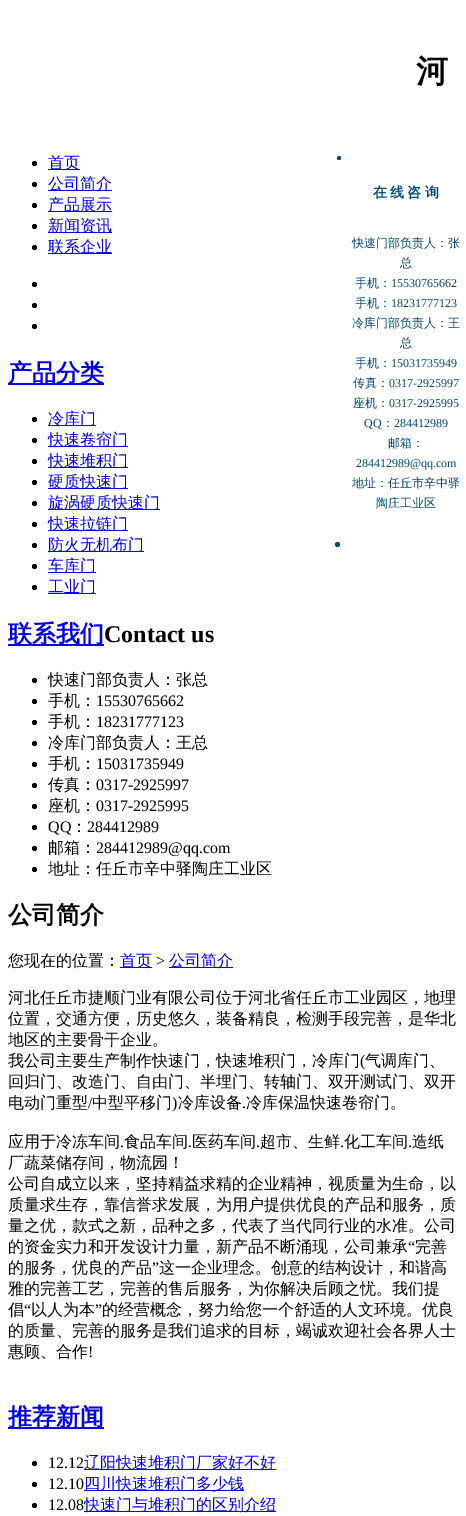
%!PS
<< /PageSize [466 1516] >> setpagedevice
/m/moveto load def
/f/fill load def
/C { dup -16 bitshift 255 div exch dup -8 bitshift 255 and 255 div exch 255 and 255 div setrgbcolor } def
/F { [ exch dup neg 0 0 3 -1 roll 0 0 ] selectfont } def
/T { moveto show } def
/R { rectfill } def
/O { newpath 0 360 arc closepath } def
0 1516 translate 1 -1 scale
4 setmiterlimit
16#FFFFFF C
0 0 466 1516 R
/WenQuanYiZenHei-Bold 32 F
16#000000 C
(河) 416 82 T
34.5 163.5 2.5 O f
16#0000EE C
48 169 32 1 R
/WenQuanYiZenHei-Medium 16 F
(首页) 48 168 T
16#000000 C
34.5 184.5 2.5 O f
16#0000EE C
48 190 64 1 R
(公司简介) 48 189 T
16#000000 C
34.5 205.5 2.5 O f
16#0000EE C
48 211 64 1 R
(产品展示) 48 210 T
16#000000 C
34.5 226.5 2.5 O f
16#0000EE C
48 232 64 1 R
(新闻资讯) 48 231 T
16#000000 C
34.5 247.5 2.5 O f
16#0000EE C
48 253 64 1 R
(联系企业) 48 252 T
16#000000 C
34.5 284.5 2.5 O f
34.5 305.5 2.5 O f
34.5 326.5 2.5 O f
16#0000EE C
8 383 96 2 R
/WenQuanYiZenHei-Bold 24 F
(产品分类) 8 381 T
16#000000 C
34.5 419.5 2.5 O f
16#0000EE C
48 425 48 1 R
/WenQuanYiZenHei-Medium 16 F
(冷库门) 48 424 T
16#000000 C
34.5 440.5 2.5 O f
16#0000EE C
48 446 80 1 R
(快速卷帘门) 48 445 T
16#000000 C
34.5 461.5 2.5 O f
16#0000EE C
48 467 80 1 R
(快速堆积门) 48 466 T
16#000000 C
34.5 482.5 2.5 O f
16#0000EE C
48 488 80 1 R
(硬质快速门) 48 487 T
16#000000 C
34.5 503.5 2.5 O f
16#0000EE C
48 509 112 1 R
(旋涡硬质快速门) 48 508 T
16#000000 C
34.5 524.5 2.5 O f
16#0000EE C
48 530 80 1 R
(快速拉链门) 48 529 T
16#000000 C
34.5 545.5 2.5 O f
16#0000EE C
48 551 96 1 R
(防火无机布门) 48 550 T
16#000000 C
34.5 566.5 2.5 O f
16#0000EE C
48 572 48 1 R
(车库门) 48 571 T
16#000000 C
34.5 587.5 2.5 O f
16#0000EE C
48 593 48 1 R
(工业门) 48 592 T
8 644 96 2 R
/WenQuanYiZenHei-Bold 24 F
(联系我们) 8 642 T
/LiberationSerif-Bold 24 F
16#000000 C
(Contact us) 104 642 T
34.5 680.5 2.5 O f
/WenQuanYiZenHei-Medium 16 F
(快速门部负责人：张总) 48 685 T
34.5 701.5 2.5 O f
(手机：) 48 706 T
/LiberationSerif-Regular 16 F
(15530765662) 96 706 T
34.5 722.5 2.5 O f
/WenQuanYiZenHei-Medium 16 F
(手机：) 48 727 T
/LiberationSerif-Regular 16 F
(18231777123) 96 727 T
34.5 743.5 2.5 O f
/WenQuanYiZenHei-Medium 16 F
(冷库门部负责人：王总) 48 748 T
34.5 764.5 2.5 O f
(手机：) 48 769 T
/LiberationSerif-Regular 16 F
(15031735949) 96 769 T
34.5 785.5 2.5 O f
/WenQuanYiZenHei-Medium 16 F
(传真：) 48 790 T
/LiberationSerif-Regular 16 F
(0317-2925997) 96 790 T
34.5 806.5 2.5 O f
/WenQuanYiZenHei-Medium 16 F
(座机：) 48 811 T
/LiberationSerif-Regular 16 F
(0317-2925995) 96 811 T
34.5 827.5 2.5 O f
(QQ) 48 832 T
/WenQuanYiZenHei-Medium 16 F
(：) 71 832 T
/LiberationSerif-Regular 16 F
(284412989) 87 832 T
34.5 848.5 2.5 O f
/WenQuanYiZenHei-Medium 16 F
(邮箱：) 48 853 T
/LiberationSerif-Regular 16 F
(284412989@qq.com) 96 853 T
34.5 869.5 2.5 O f
/WenQuanYiZenHei-Medium 16 F
(地址：任丘市辛中驿陶庄工业区) 48 874 T
/WenQuanYiZenHei-Bold 24 F
(公司简介) 8 923 T
/WenQuanYiZenHei-Medium 16 F
(您现在的位置：) 8 966 T
16#0000EE C
120 967 32 1 R
(首页) 120 966 T
/LiberationSerif-Regular 16 F
16#000000 C
(>) 156 966 T
16#0000EE C
169 967 64 1 R
/WenQuanYiZenHei-Medium 16 F
(公司简介) 169 966 T
16#000000 C
(河北任丘市捷顺门业有限公司位于河北省任丘市工业园区，地理) 8 1003 T
(位置，交通方便，历史悠久，装备精良，检测手段完善，是华北) 8 1024 T
(地区的主要骨干企业。) 8 1045 T
(我公司主要生产制作快速门，快速堆积门，冷库门) 8 1066 T
/LiberationSerif-Regular 16 F
(\() 360 1066 T
/WenQuanYiZenHei-Medium 16 F
(气调库门、) 365 1066 T
(回归门、改造门、自由门、半埋门、转轴门、双开测试门、双开) 8 1087 T
(电动门重型) 8 1108 T
/LiberationSerif-Regular 16 F
(/) 88 1108 T
/WenQuanYiZenHei-Medium 16 F
(中型平移门) 92 1108 T
/LiberationSerif-Regular 16 F
(\)) 172 1108 T
/WenQuanYiZenHei-Medium 16 F
(冷库设备) 178 1108 T
/LiberationSerif-Regular 16 F
(.) 242 1108 T
/WenQuanYiZenHei-Medium 16 F
(冷库保温快速卷帘门。) 246 1108 T
(应用于冷冻车间) 8 1147 T
/LiberationSerif-Regular 16 F
(.) 120 1147 T
/WenQuanYiZenHei-Medium 16 F
(食品车间) 124 1147 T
/LiberationSerif-Regular 16 F
(.) 188 1147 T
/WenQuanYiZenHei-Medium 16 F
(医药车间) 192 1147 T
/LiberationSerif-Regular 16 F
(.) 256 1147 T
/WenQuanYiZenHei-Medium 16 F
(超市、生鲜) 260 1147 T
/LiberationSerif-Regular 16 F
(.) 340 1147 T
/WenQuanYiZenHei-Medium 16 F
(化工车间) 344 1147 T
/LiberationSerif-Regular 16 F
(.) 408 1147 T
/WenQuanYiZenHei-Medium 16 F
(造纸) 412 1147 T
(厂蔬菜储存间，物流园！) 8 1168 T
(公司自成立以来，坚持精益求精的企业精神，视质量为生命，以) 8 1189 T
(质量求生存，靠信誉求发展，为用户提供优良的产品和服务，质) 8 1210 T
(量之优，款式之新，品种之多，代表了当代同行业的水准。公司) 8 1231 T
(的资金实力和开发设计力量，新产品不断涌现，公司兼承) 8 1252 T
/LiberationSerif-Regular 16 F
(“) 408 1252 T
/WenQuanYiZenHei-Medium 16 F
(完善) 415 1252 T
(的服务，优良的产品) 8 1273 T
/LiberationSerif-Regular 16 F
(”) 152 1273 T
/WenQuanYiZenHei-Medium 16 F
(这一企业理念。创意的结构设计，和谐高) 159 1273 T
(雅的完善工艺，完善的售后服务，为你解决后顾之忧。我们提) 8 1294 T
(倡) 8 1315 T
/LiberationSerif-Regular 16 F
(“) 24 1315 T
/WenQuanYiZenHei-Medium 16 F
(以人为本) 31 1315 T
/LiberationSerif-Regular 16 F
(”) 95 1315 T
/WenQuanYiZenHei-Medium 16 F
(的经营概念，努力给您一个舒适的人文环境。优良) 102 1315 T
(的质量、完善的服务是我们追求的目标，竭诚欢迎社会各界人士) 8 1336 T
(惠顾、合作) 8 1357 T
/LiberationSerif-Regular 16 F
(!) 88 1357 T
16#0000EE C
8 1427 96 2 R
/WenQuanYiZenHei-Bold 24 F
(推荐新闻) 8 1425 T
16#000000 C
34.5 1463.5 2.5 O f
/LiberationSerif-Regular 16 F
(12.12) 48 1468 T
16#0000EE C
84 1469 192 1 R
/WenQuanYiZenHei-Medium 16 F
(辽阳快速堆积门厂家好不好) 84 1468 T
16#000000 C
34.5 1484.5 2.5 O f
/LiberationSerif-Regular 16 F
(12.10) 48 1489 T
16#0000EE C
84 1490 160 1 R
/WenQuanYiZenHei-Medium 16 F
(四川快速堆积门多少钱) 84 1489 T
16#000000 C
34.5 1505.5 2.5 O f
/LiberationSerif-Regular 16 F
(12.08) 48 1510 T
16#0000EE C
84 1511 192 1 R
/WenQuanYiZenHei-Medium 16 F
(快速门与堆积门的区别介绍) 84 1510 T
16#004876 C
339 158 2 O f
/WenQuanYiZenHei-Bold 14 F
373 197 m -1 0 32 (在 线 咨 询) widthshow
/WenQuanYiZenHei-Medium 12 F
(快速门部负责人：张) 352 247 T
(总) 400 267 T
(手机：) 355 287 T
/LiberationSerif-Regular 12 F
(15530765662) 391 287 T
/WenQuanYiZenHei-Medium 12 F
(手机：) 355 307 T
/LiberationSerif-Regular 12 F
(18231777123) 391 307 T
/WenQuanYiZenHei-Medium 12 F
(冷库门部负责人：王) 352 327 T
(总) 400 347 T
(手机：) 355 367 T
/LiberationSerif-Regular 12 F
(15031735949) 391 367 T
/WenQuanYiZenHei-Medium 12 F
(传真：) 353 387 T
/LiberationSerif-Regular 12 F
(0317-2925997) 389 387 T
/WenQuanYiZenHei-Medium 12 F
(座机：) 353 407 T
/LiberationSerif-Regular 12 F
(0317-2925995) 389 407 T
(QQ) 364 427 T
/WenQuanYiZenHei-Medium 12 F
(：) 382 427 T
/LiberationSerif-Regular 12 F
(284412989) 394 427 T
/WenQuanYiZenHei-Medium 12 F
(邮箱：) 388 447 T
/LiberationSerif-Regular 12 F
(284412989@qq.com) 356 467 T
/WenQuanYiZenHei-Medium 12 F
(地址：任丘市辛中驿) 352 487 T
(陶庄工业区) 376 507 T
337.5 544.5 2.5 O f
showpage
